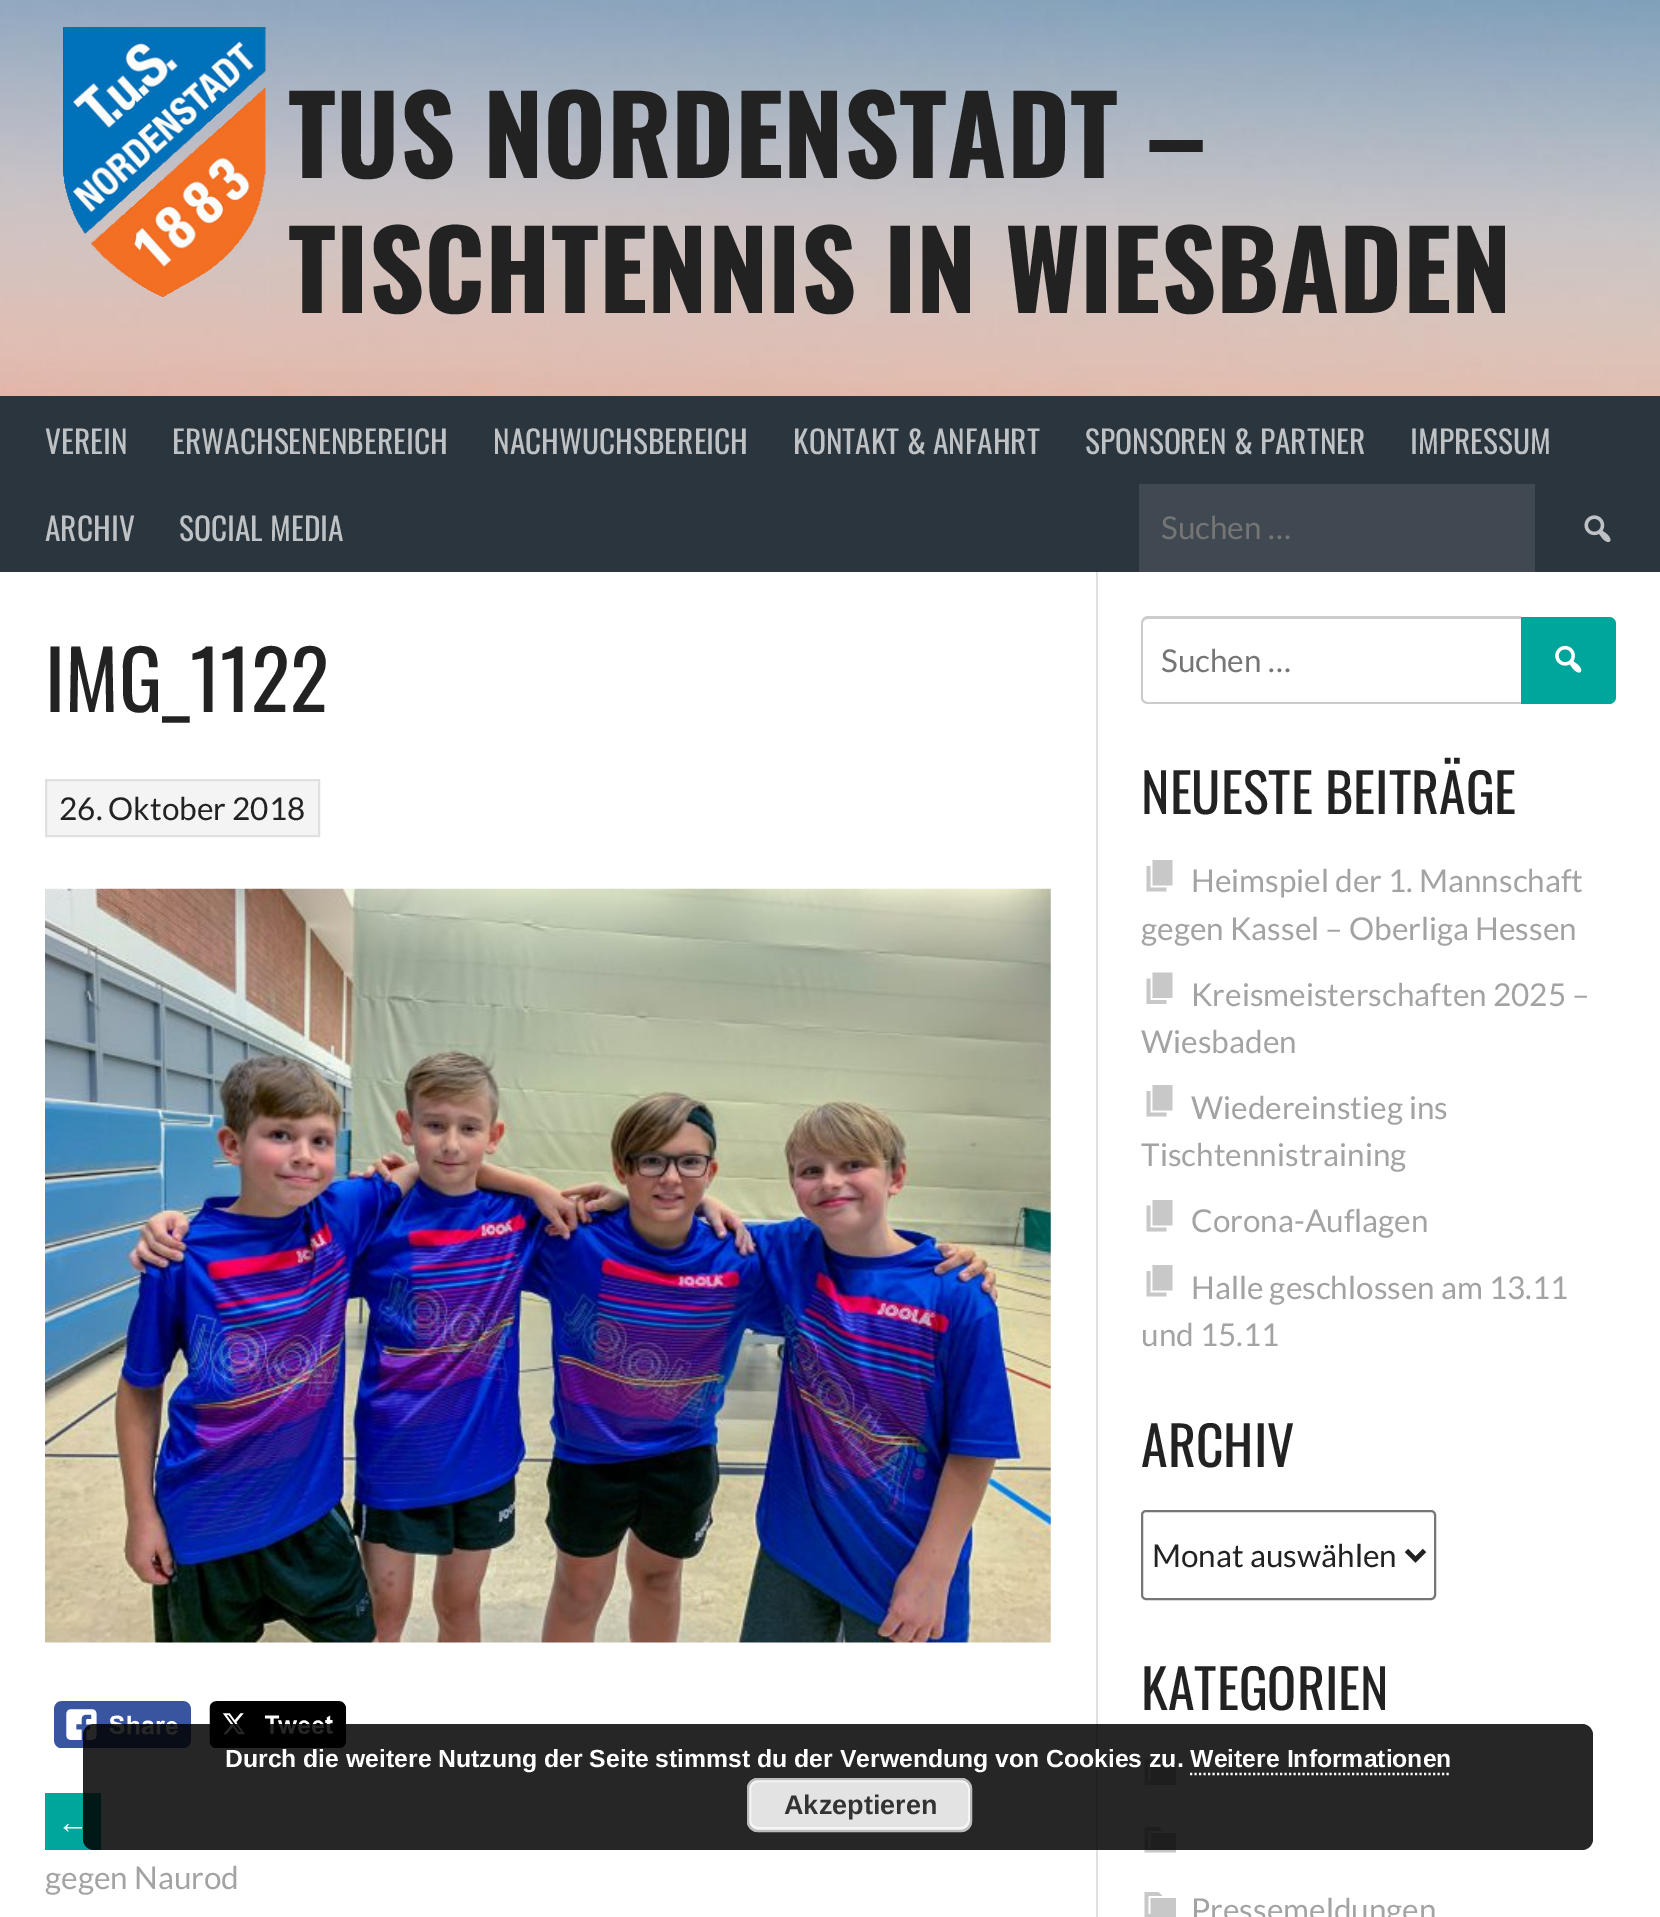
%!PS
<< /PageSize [1660 1917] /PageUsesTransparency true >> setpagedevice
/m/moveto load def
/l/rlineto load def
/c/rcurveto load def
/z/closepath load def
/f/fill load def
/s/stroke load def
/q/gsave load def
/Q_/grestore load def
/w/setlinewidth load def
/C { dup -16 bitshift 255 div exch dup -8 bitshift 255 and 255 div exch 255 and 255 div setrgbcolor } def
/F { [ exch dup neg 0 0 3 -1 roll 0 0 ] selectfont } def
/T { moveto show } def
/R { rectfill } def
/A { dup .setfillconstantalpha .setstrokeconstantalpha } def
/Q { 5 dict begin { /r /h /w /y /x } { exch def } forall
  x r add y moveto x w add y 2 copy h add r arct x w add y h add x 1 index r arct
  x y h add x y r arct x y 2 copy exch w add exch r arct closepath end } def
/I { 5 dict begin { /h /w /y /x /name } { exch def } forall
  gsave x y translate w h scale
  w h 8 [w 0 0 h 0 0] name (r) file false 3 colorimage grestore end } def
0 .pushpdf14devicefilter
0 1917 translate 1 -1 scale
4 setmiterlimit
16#FFFFFF C
0 0 1660 1917 R
(1.rgb) 0 0 1660 396 I
(2.rgb) 63 27 203 270 I
/Oswald-Bold 108 F
16#222222 C
(TUS NORDENSTADT –) 288 178 T
(TISCHTENNIS IN WIESBADEN) 288 313 T
16#2B353E C
0 396 1660 176 R
/Oswald-Regular 31.5 F
16#BFC2C5 C
(VEREIN) 45 454 T
(ERWACHSENENBEREICH) 172 454 T
(NACHWUCHSBEREICH) 493 454 T
(KONTAKT & ANFAHRT) 793 454 T
(SPONSOREN & PARTNER) 1085 454 T
(IMPRESSUM) 1410 454 T
(ARCHIV) 45 541 T
(SOCIAL MEDIA) 179 541 T
16#404951 C
1139 484 396 88 R
/Lato-Regular 31.5 F
16#757575 C
(Suchen …) 1161 539 T
(3.rgb) 1584 515 27 28 I
16#E0E0E0 C
2 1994 m 1096 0 l 0 -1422 l -2 0 l 0 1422 l z f
/Oswald-Regular 81 F
16#222222 C
(IMG_1122) 45 712 T
16#F4F4F4 C
46 780 m 273 0 l 0 56 l -273 0 l z q f Q_
16#E0E0E0 C
2 w
s
/Lato-Regular 31.5 F
16#222222 C
(26. Oktober 2018) 59 820 T
(4.rgb) 45 888 1006 755 I
(5.rgb) 54 1701 137 47 I
(6.rgb) 209 1701 138 47 I
16#00A69C C
45 1793 56 57 R
/LiberationSans-Regular 31.5 F
16#FFFFFF C
(←) 57 1833 T
/Lato-Regular 31.5 F
16#A3A3A3 C
(gegen Naurod) 45 1889 T
16#CCCCCC C
1148 616 m 373 0 l 0 88 l -373 0 l -4 0 -7 -3 -7 -6 c 0 -75 l 0 -3 3 -7 7 -7 c z 1148 619 m 373 0 l 0 83 l -373 0 l -3 0 -5 -2 -5 -4 c 0 -75 l 0 -2 2 -4 5 -4 c z eofill
16#757575 C
(Suchen …) 1161 672 T
16#00A69C C
1521 617 m 88 0 l 4 0 7 3 7 7 c 0 73 l 0 4 -3 7 -7 7 c -88 0 l z f
(7.rgb) 1555 645 27 28 I
/Oswald-Regular 54 F
16#222222 C
(NEUESTE BEITRÄGE) 1141 814 T
16#C8C8C8 C
1152.5 885.5 m 0 -25.5 l 20 0 l 0 25.5 l z 1150.5 887.5 m 16 0 l 0 4 l -20 0 l 0 -25.5 l 4 0 l z f
/Lato-Regular 31.5 F
16#A3A3A3 C
(Heimspiel der 1. Mannschaft) 1191 892 T
(gegen Kassel – Oberliga Hessen) 1141 940 T
16#C8C8C8 C
1152.5 998 m 0 -25.5 l 20 0 l 0 25.5 l z 1150.5 1000 m 16 0 l 0 4 l -20 0 l 0 -25.5 l 4 0 l z f
16#A3A3A3 C
(Kreismeisterschaften 2025 –) 1191 1006 T
(Wiesbaden) 1141 1053 T
16#C8C8C8 C
1152.5 1110.5 m 0 -25.5 l 20 0 l 0 25.5 l z 1150.5 1112.5 m 16 0 l 0 4 l -20 0 l 0 -25.5 l 4 0 l z f
16#A3A3A3 C
(Wiedereinstieg ins) 1191 1119 T
(Tischtennistraining) 1141 1166 T
16#C8C8C8 C
1152.5 1225.5 m 0 -25.5 l 20 0 l 0 25.5 l z 1150.5 1227.5 m 16 0 l 0 4 l -20 0 l 0 -26 l 4 0 l z f
16#A3A3A3 C
(Corona-Auflagen) 1191 1232 T
16#C8C8C8 C
1152.5 1290.5 m 0 -25.5 l 20 0 l 0 25.5 l z 1150.5 1292.5 m 16 0 l 0 4 l -20 0 l 0 -25.5 l 4 0 l z f
16#A3A3A3 C
(Halle geschlossen am 13.11) 1191 1299 T
(und 15.11) 1141 1346 T
/Oswald-Regular 54 F
16#222222 C
(ARCHIV) 1141 1467 T
16#767676 C
1142 1511 293 88 4 Q s
16#222222 C
4.5 w
1406.5 1550.5 m 9 9 l 9 -9 l s
/Lato-Regular 31.5 F
(Monat auswählen) 1152 1567 T
/Oswald-Regular 54 F
(KATEGORIEN) 1141 1710 T
16#C8C8C8 C
1150.5 1765.5 m 25.5 0 l 0 19.5 l -31.5 0 l 0 -25.5 l 14 0 l 4 4 l -14 0 l 0 17.5 l 2 0 l z f
1150.5 1833 m 25.5 0 l 0 19.5 l -31.5 0 l 0 -25.5 l 14 0 l 4 4 l -14 0 l 0 17.5 l 2 0 l z f
1150.5 1898 m 25.5 0 l 0 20 l -31.5 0 l 0 -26 l 14 0 l 4 4 l -14 0 l 0 18 l 2 0 l z f
/Lato-Regular 31.5 F
16#A3A3A3 C
(Pressemeldungen) 1191 1921 T
0.85 A
16#000000 C
83 1724 1510 126 11 Q f
/LiberationSans-Bold 24.75 F
1 A
16#FFFFFF C
(Durch die weitere Nutzung der Seite stimmst du der Verwendung von Cookies zu. Weitere Informationen) 225 1767 T
2.2 w
[2.25 2.25] 0 setdash
1190 1774 m 261 0 l s
16#E3E3E3 C
747 1778 225 54 11 Q f
16#F6F6F6 C
2 w
[] 0 setdash
750 1781 219 47 8 Q s
16#BBBBBB C
748 1779 223 52 10 Q s
/LiberationSans-Bold 27 F
16#333333 C
(Akzeptieren) 784 1814 T
.poppdf14devicefilter showpage
